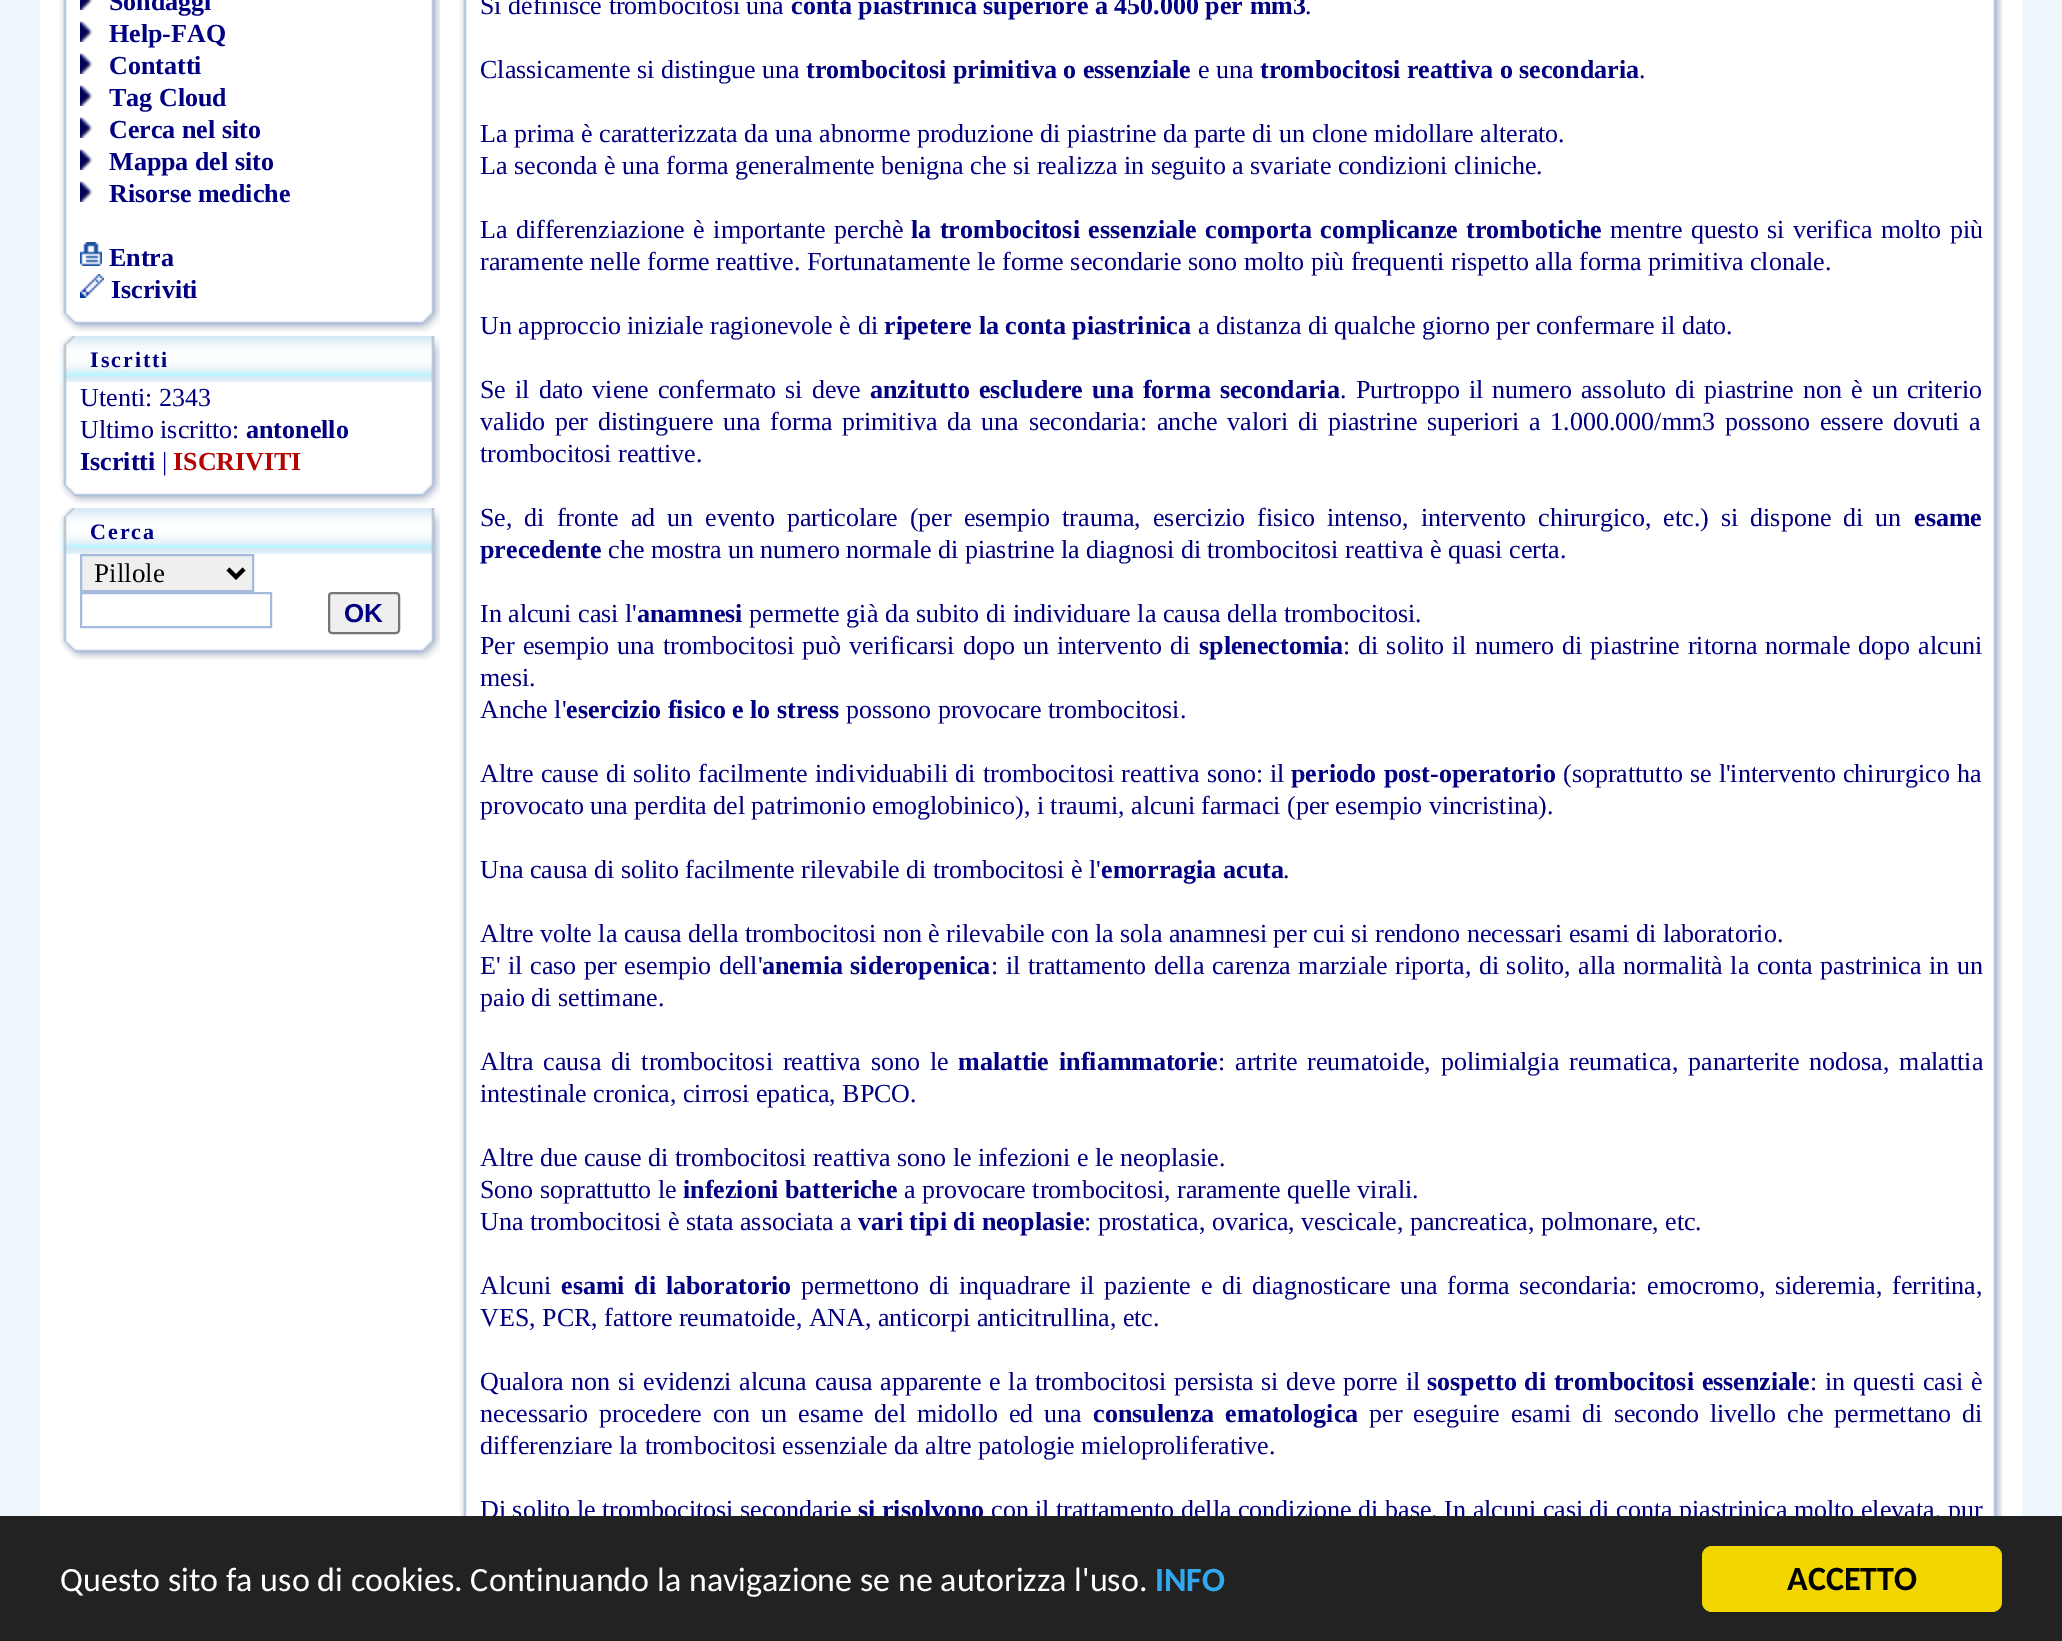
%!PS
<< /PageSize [2062 1641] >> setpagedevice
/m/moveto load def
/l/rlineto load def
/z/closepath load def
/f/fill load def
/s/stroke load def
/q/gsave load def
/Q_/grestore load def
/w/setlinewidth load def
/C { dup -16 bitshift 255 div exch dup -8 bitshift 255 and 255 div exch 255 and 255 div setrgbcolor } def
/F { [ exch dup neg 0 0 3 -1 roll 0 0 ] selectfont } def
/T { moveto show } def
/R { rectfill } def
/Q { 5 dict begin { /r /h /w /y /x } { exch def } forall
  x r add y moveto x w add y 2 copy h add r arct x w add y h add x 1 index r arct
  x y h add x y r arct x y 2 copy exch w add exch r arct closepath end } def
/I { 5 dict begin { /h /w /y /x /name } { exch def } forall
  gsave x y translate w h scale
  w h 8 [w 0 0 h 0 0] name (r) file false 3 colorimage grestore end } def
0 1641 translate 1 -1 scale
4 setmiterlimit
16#EEF7FC C
0 0 2062 1641 R
16#FFFFFF C
40 0 1982 1516 R
(1.rgb) 60 0 7 306 I
(2.rgb) 80 0 13 10 I
/LiberationSerif-Bold 26 F
16#000080 C
(Sondaggi) 109 10 T
(3.rgb) 80 21 13 21 I
(Help-FAQ) 109 42 T
(3.rgb) 80 53 13 21 I
(Contatti) 109 74 T
(3.rgb) 80 85 13 21 I
(Tag Cloud) 109 106 T
(3.rgb) 80 117 13 21 I
(Cerca nel sito) 109 138 T
(3.rgb) 80 149 13 21 I
(Mappa del sito) 109 170 T
(3.rgb) 80 181 13 21 I
(Risorse mediche) 109 202 T
(4.rgb) 80 242 22 24 I
(Entra) 109 266 T
(5.rgb) 80 274 24 24 I
(Iscriviti) 111 298 T
(6.rgb) 431 0 9 306 I
(7.rgb) 60 306 20 26 I
(8.rgb) 80 321 340 11 I
(9.rgb) 420 306 20 26 I
(10.rgb) 60 336 20 46 I
(11.rgb) 80 336 340 46 I
/LiberationSerif-Bold 22 F
90 367 m 2 0 (Iscritti) ashow
(12.rgb) 420 336 20 46 I
(13.rgb) 60 382 7 96 I
/LiberationSerif-Regular 26 F
(Utenti: 2343) 80 406 T
(Ultimo iscritto:) 80 438 T
/LiberationSerif-Bold 26 F
(antonello) 246 438 T
(Iscritti) 80 470 T
/LiberationSerif-Regular 26 F
(|) 162 470 T
/LiberationSerif-Bold 26 F
16#B30303 C
(ISCRIVITI) 173 470 T
(14.rgb) 431 382 9 96 I
(7.rgb) 60 478 20 26 I
(8.rgb) 80 493 340 11 I
(9.rgb) 420 478 20 26 I
(10.rgb) 60 508 20 46 I
(11.rgb) 80 508 340 46 I
/LiberationSerif-Bold 22 F
16#000080 C
90 539 m 2 0 (Cerca) ashow
(12.rgb) 420 508 20 46 I
(15.rgb) 60 554 7 80 I
16#EFEFEF C
81 555 m 172 0 l 0 36 l -172 0 l z q f Q_
16#A5BADC C
2 w
s
16#000000 C
4 w
228 569 m 8 8 l 8 -8 l s
/LiberationSerif-Regular 27 F
(Pillole) 94 582 T
16#A5BADC C
2 w
81 593 190 34 rectstroke
16#EFEFEF C
329 593 70 40 3 Q q f Q_
16#767676 C
s
/LiberationSans-Bold 26 F
16#000080 C
(OK) 344 622 T
(16.rgb) 431 554 9 80 I
(7.rgb) 60 634 20 26 I
(8.rgb) 80 649 340 11 I
(9.rgb) 420 634 20 26 I
(17.rgb) 460 0 7 1516 I
/LiberationSerif-Regular 26 F
(Si definisce trombocitosi una) 480 14 T
/LiberationSerif-Bold 26 F
(conta piastrinica superiore a 450.000 per mm3) 791 14 T
/LiberationSerif-Regular 26 F
(.) 1305 14 T
(Classicamente si distingue una) 480 78 T
/LiberationSerif-Bold 26 F
(trombocitosi primitiva o essenziale) 806 78 T
/LiberationSerif-Regular 26 F
(e una) 1198 78 T
/LiberationSerif-Bold 26 F
(trombocitosi reattiva o secondaria) 1260 78 T
/LiberationSerif-Regular 26 F
(.) 1639 78 T
(La prima è caratterizzata da una abnorme produzione di piastrine da parte di un clone midollare alterato.) 480 142 T
(La seconda è una forma generalmente benigna che si realizza in seguito a svariate condizioni cliniche.) 480 174 T
480 238 m 2 0 32 (La differenziazione è importante perchè) widthshow
/LiberationSerif-Bold 26 F
911 238 m 2 0 32 (la trombocitosi essenziale comporta complicanze trombotiche) widthshow
/LiberationSerif-Regular 26 F
1610 238 m 2 0 32 (mentre questo si verifica molto più) widthshow
(raramente nelle forme reattive. Fortunatamente le forme secondarie sono molto più frequenti rispetto alla forma primitiva clonale.) 480 270 T
(Un approccio iniziale ragionevole è di) 480 334 T
/LiberationSerif-Bold 26 F
(ripetere la conta piastrinica) 884 334 T
/LiberationSerif-Regular 26 F
(a distanza di qualche giorno per confermare il dato.) 1198 334 T
480 398 m 2.6 0 32 (Se il dato viene confermato si deve) widthshow
/LiberationSerif-Bold 26 F
870 398 m 2.6 0 32 (anzitutto escludere una forma secondaria) widthshow
/LiberationSerif-Regular 26 F
1340 398 m 2.6 0 32 (. Purtroppo il numero assoluto di piastrine non è un criterio) widthshow
480 430 m 3.25 0 32 (valido per distinguere una forma primitiva da una secondaria: anche valori di piastrine superiori a 1.000.000/mm3 possono essere dovuti a) widthshow
(trombocitosi reattive.) 480 462 T
480 526 m 5.5 0 32 (Se, di fronte ad un evento particolare \(per esempio trauma, esercizio fisico intenso, intervento chirurgico, etc.\) si dispone di un) widthshow
/LiberationSerif-Bold 26 F
(esame) 1914 526 T
(precedente) 480 558 T
/LiberationSerif-Regular 26 F
(che mostra un numero normale di piastrine la diagnosi di trombocitosi reattiva è quasi certa.) 608 558 T
(In alcuni casi l') 480 622 T
/LiberationSerif-Bold 26 F
(anamnesi) 637 622 T
/LiberationSerif-Regular 26 F
(permette già da subito di individuare la causa della trombocitosi.) 749 622 T
480 654 m 1.5 0 32 (Per esempio una trombocitosi può verificarsi dopo un intervento di) widthshow
/LiberationSerif-Bold 26 F
(splenectomia) 1199 654 T
/LiberationSerif-Regular 26 F
1343 654 m 1.5 0 32 (: di solito il numero di piastrine ritorna normale dopo alcuni) widthshow
(mesi.) 480 686 T
(Anche l') 480 718 T
/LiberationSerif-Bold 26 F
(esercizio fisico e lo stress) 566 718 T
/LiberationSerif-Regular 26 F
(possono provocare trombocitosi.) 846 718 T
480 782 m .75 0 32 (Altre cause di solito facilmente individuabili di trombocitosi reattiva sono: il) widthshow
/LiberationSerif-Bold 26 F
1291 782 m 1 0 32 (periodo post-operatorio) widthshow
/LiberationSerif-Regular 26 F
1563 782 m .5 0 32 (\(soprattutto se l'intervento chirurgico ha) widthshow
(provocato una perdita del patrimonio emoglobinico\), i traumi, alcuni farmaci \(per esempio vincristina\).) 480 814 T
(Una causa di solito facilmente rilevabile di trombocitosi è l') 480 878 T
/LiberationSerif-Bold 26 F
(emorragia acuta) 1101 878 T
/LiberationSerif-Regular 26 F
(.) 1283 878 T
(Altre volte la causa della trombocitosi non è rilevabile con la sola anamnesi per cui si rendono necessari esami di laboratorio.) 480 942 T
480 974 m 1 0 32 (E' il caso per esempio dell') widthshow
/LiberationSerif-Bold 26 F
762 974 m 1 0 32 (anemia sideropenica) widthshow
/LiberationSerif-Regular 26 F
991 974 m 1 0 32 (: il trattamento della carenza marziale riporta, di solito, alla normalità la conta pastrinica in un) widthshow
(paio di settimane.) 480 1006 T
480 1070 m 3.5 0 32 (Altra causa di trombocitosi reattiva sono le) widthshow
/LiberationSerif-Bold 26 F
958 1070 m 3.5 0 32 (malattie infiammatorie) widthshow
/LiberationSerif-Regular 26 F
1218 1070 m 3.5 0 32 (: artrite reumatoide, polimialgia reumatica, panarterite nodosa, malattia) widthshow
(intestinale cronica, cirrosi epatica, BPCO.) 480 1102 T
(Altre due cause di trombocitosi reattiva sono le infezioni e le neoplasie.) 480 1166 T
(Sono soprattutto le) 480 1198 T
/LiberationSerif-Bold 26 F
(infezioni batteriche) 683 1198 T
/LiberationSerif-Regular 26 F
(a provocare trombocitosi, raramente quelle virali.) 904 1198 T
(Una trombocitosi è stata associata a) 480 1230 T
/LiberationSerif-Bold 26 F
(vari tipi di neoplasie) 858 1230 T
/LiberationSerif-Regular 26 F
(: prostatica, ovarica, vescicale, pancreatica, polmonare, etc.) 1084 1230 T
(Alcuni) 480 1294 T
/LiberationSerif-Bold 26 F
561 1294 m 3.25 0 32 (esami di laboratorio) widthshow
/LiberationSerif-Regular 26 F
801 1294 m 3.25 0 32 (permettono di inquadrare il paziente e di diagnosticare una forma secondaria: emocromo, sideremia, ferritina,) widthshow
(VES, PCR, fattore reumatoide, ANA, anticorpi anticitrullina, etc.) 480 1326 T
480 1390 m 1.25 0 32 (Qualora non si evidenzi alcuna causa apparente e la trombocitosi persista si deve porre il) widthshow
/LiberationSerif-Bold 26 F
1427 1390 m 1.25 0 32 (sospetto di trombocitosi essenziale) widthshow
/LiberationSerif-Regular 26 F
1810 1390 m 1.25 0 32 (: in questi casi è) widthshow
480 1422 m 4.5 0 32 (necessario procedere con un esame del midollo ed una) widthshow
/LiberationSerif-Bold 26 F
1093 1422 m 4.5 0 32 (consulenza ematologica) widthshow
/LiberationSerif-Regular 26 F
1369 1422 m 4.5 0 32 (per eseguire esami di secondo livello che permettano di) widthshow
(differenziare la trombocitosi essenziale da altre patologie mieloproliferative.) 480 1454 T
(Di solito le trombocitosi secondarie) 480 1518 T
/LiberationSerif-Bold 26 F
(si risolvono) 858 1518 T
/LiberationSerif-Regular 26 F
(con il trattamento della condizione di base. In alcuni casi di conta piastrinica molto elevata, pur) 991 1518 T
(18.rgb) 1993 0 9 1516 I
16#222222 C
0 1516 2062 125 R
/Carlito-Regular 34 F
16#FFFFFF C
(Questo sito fa uso di cookies. Continuando la navigazione se ne autorizza l'uso.) 60 1591 T
/Carlito-Bold 34 F
16#31A8F0 C
(INFO) 1155 1591 T
16#F1D600 C
1702 1546 300 66 10 Q f
16#000000 C
(ACCETTO) 1787 1590 T
showpage
